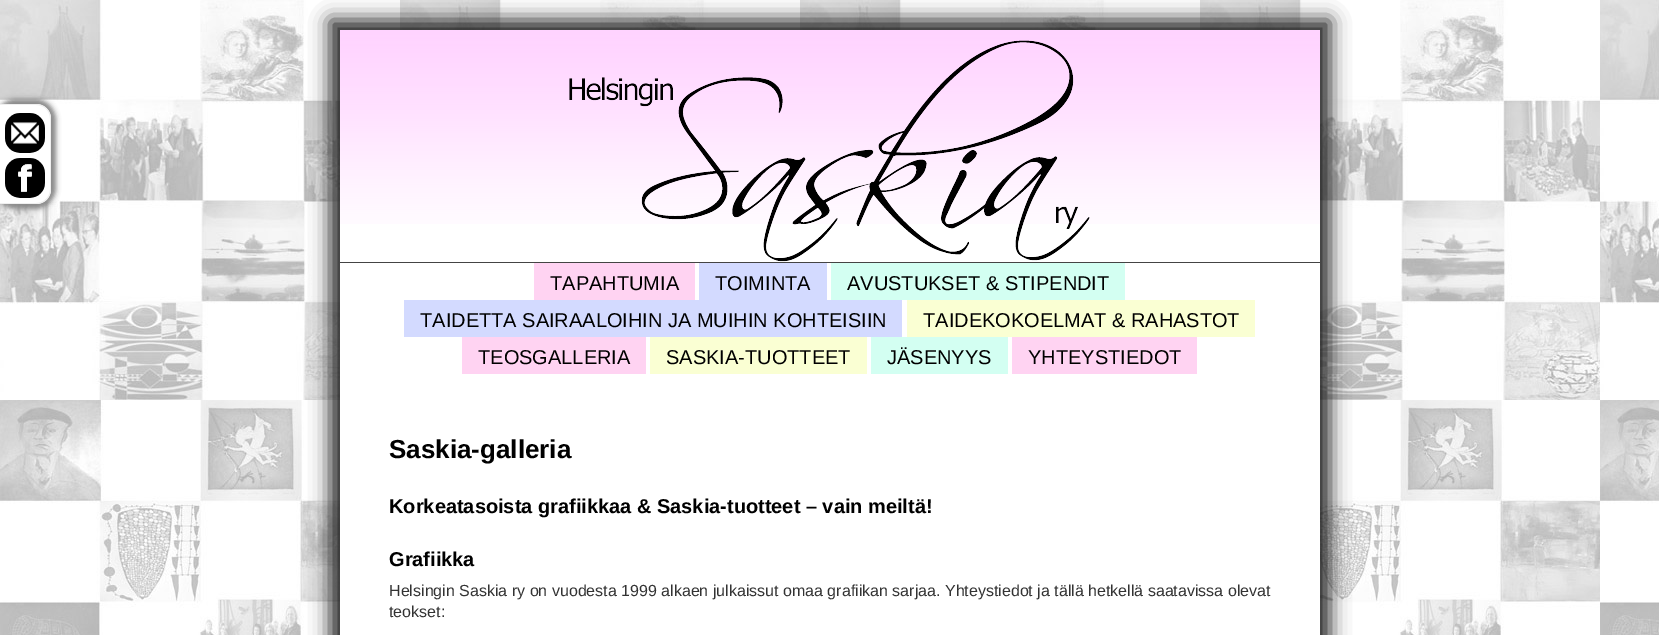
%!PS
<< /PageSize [1659 635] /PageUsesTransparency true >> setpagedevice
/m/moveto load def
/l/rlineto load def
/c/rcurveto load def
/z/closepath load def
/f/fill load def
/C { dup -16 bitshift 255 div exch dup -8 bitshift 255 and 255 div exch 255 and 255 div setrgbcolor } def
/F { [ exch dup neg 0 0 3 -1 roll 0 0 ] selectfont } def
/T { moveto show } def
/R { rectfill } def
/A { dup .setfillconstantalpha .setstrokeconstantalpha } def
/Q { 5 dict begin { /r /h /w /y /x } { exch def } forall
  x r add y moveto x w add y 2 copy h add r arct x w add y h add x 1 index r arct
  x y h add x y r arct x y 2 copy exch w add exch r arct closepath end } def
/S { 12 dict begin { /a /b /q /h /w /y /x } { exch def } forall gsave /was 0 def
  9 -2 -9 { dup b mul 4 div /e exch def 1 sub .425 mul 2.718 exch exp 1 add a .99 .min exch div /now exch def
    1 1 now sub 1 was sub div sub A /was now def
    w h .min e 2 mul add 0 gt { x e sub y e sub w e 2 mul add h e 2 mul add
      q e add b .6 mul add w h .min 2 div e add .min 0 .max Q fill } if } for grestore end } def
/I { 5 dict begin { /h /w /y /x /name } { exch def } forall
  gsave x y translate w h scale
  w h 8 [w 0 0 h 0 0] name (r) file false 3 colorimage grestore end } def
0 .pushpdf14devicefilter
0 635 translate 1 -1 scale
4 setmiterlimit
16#FFFFFF C
0 0 1659 635 R
(1.rgb) 0 0 1659 635 I
16#888888 C
-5 99 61 110 20 2.5 1 S
16#FFFFFF C
0 104 m 36 0 l 8.5 0 15 6.5 15 15 c 0 70 l 0 8.5 -6.5 15 -15 15 c -36 0 l z f
16#EFEFEF C
0 104 m 36 0 l 8 0 15 7 15 15 c 0 70 l 0 8 -7 15 -15 15 c -36 0 l z 0 105 m 36 0 l 8 0 14 6 14 14 c 0 70 l 0 8 -6 14 -14 14 c -36 0 l z eofill
(2.rgb) 5 113 40 40 I
(3.rgb) 5 158 40 40 I
16#222222 C
330 20 1000 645 0 10 1 S
16#FFFFFF C
340 224 980 411 R
(4.rgb) 340 30 980 194 I
(5.rgb) 569 40 521 222 I
16#444444 C
340 262 980 1 R
16#FFD3F2 C
534 263 161 37 R
/LiberationSans-Regular 20 F
16#000000 C
(TAPAHTUMIA) 550 290 T
16#D3DAFF C
699 263 128 37 R
16#000000 C
(TOIMINTA) 715 290 T
16#D3FFF2 C
831 263 294 37 R
16#000000 C
(AVUSTUKSET & STIPENDIT) 847 290 T
16#D3DAFF C
404 300 498 37 R
16#000000 C
(TAIDETTA SAIRAALOIHIN JA MUIHIN KOHTEISIIN) 420 327 T
16#FAFFD3 C
907 300 348 37 R
16#000000 C
(TAIDEKOKOELMAT & RAHASTOT) 923 327 T
16#FFD3F2 C
462 337 184 37 R
16#000000 C
(TEOSGALLERIA) 478 364 T
16#FAFFD3 C
650 337 217 37 R
16#000000 C
(SASKIA-TUOTTEET) 666 364 T
16#D3FFF2 C
871 337 137 37 R
16#000000 C
(JÄSENYYS) 887 364 T
16#FFD3F2 C
1012 337 185 37 R
16#000000 C
(YHTEYSTIEDOT) 1028 364 T
/LiberationSans-Bold 26 F
(Saskia-galleria) 389 458 T
/LiberationSans-Bold 20 F
(Korkeatasoista grafiikkaa & Saskia-tuotteet – vain meiltä!) 389 513 T
(Grafiikka) 389 566 T
/LiberationSans-Regular 16 F
16#333333 C
(Helsingin Saskia ry on vuodesta 1999 alkaen julkaissut omaa grafiikan sarjaa. Yhteystiedot ja tällä hetkellä saatavissa olevat) 389 596 T
(teokset:) 389 617 T
.poppdf14devicefilter showpage
